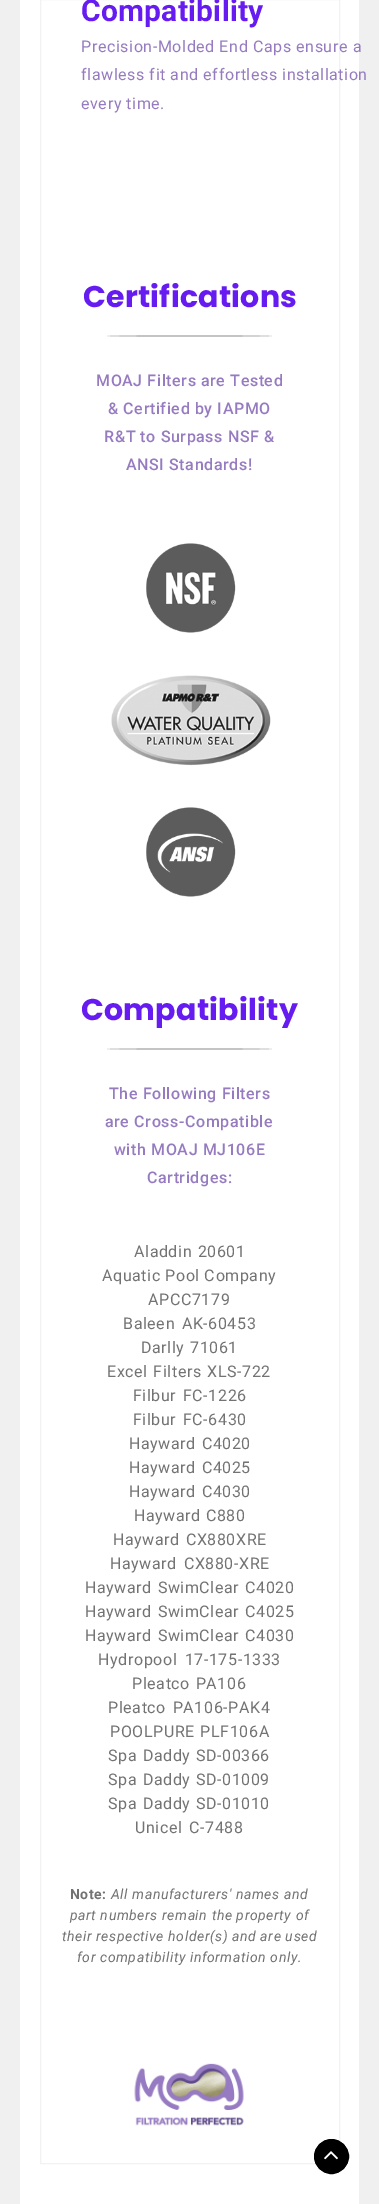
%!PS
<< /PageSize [379 2204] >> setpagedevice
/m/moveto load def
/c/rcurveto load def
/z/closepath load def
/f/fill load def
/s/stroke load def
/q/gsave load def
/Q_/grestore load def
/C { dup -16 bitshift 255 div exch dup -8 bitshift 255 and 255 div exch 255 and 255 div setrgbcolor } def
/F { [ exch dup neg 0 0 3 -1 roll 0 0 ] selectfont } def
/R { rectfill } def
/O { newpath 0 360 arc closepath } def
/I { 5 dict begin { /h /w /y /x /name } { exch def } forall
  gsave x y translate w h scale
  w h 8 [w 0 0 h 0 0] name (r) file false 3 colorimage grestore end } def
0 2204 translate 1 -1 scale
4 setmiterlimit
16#FFFFFF C
0 0 379 2204 R
16#F0F0F0 C
359 0 20 2204 R
0 0 20 2204 R
16#F2F2F2 C
40.5 -.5 299 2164 rectstroke
/Roboto-Bold 30 F
16#661BF1 C
81 21 m .25 0 (Compatibility) ashow
/Roboto-Regular 16 F
16#967BC1 C
81 52 m .6 0 (Precision-Molded End Caps ensure a) ashow
81 80 m .6 0 (flawless fit and effortless installation) ashow
81 109 m .6 0 (every time.) ashow
/Poppins-Bold 30 F
16#661BF1 C
83 307 m .25 0 (Certifications) ashow
16#C4C4C4 C
189.5 335 m 45.5 0 82.5 .5 82.5 1 c 0 .5 -37 1 -82.5 1 c -45.5 0 -82.5 -.5 -82.5 -1 c 0 -.5 37 -1 82.5 -1 c z f
/Roboto-Medium 16 F
16#967BC1 C
96 386 m .6 0 (MOAJ Filters are Tested) ashow
108 414 m .6 0 (& Certified by IAPMO) ashow
104 442 m .6 0 (R&T to Surpass NSF &) ashow
126 470 m .6 0 (ANSI Standards!) ashow
(1.rgb) 146 543 90 90 I
(2.rgb) 111 675 160 91 I
(3.rgb) 146 807 90 90 I
/Poppins-Bold 30 F
16#661BF1 C
81 1020 m .25 0 (Compatibility) ashow
16#C4C4C4 C
189.5 1048 m 45.5 0 82.5 .5 82.5 1 c 0 .5 -37 1 -82.5 1 c -45.5 0 -82.5 -.5 -82.5 -1 c 0 -.5 37 -1 82.5 -1 c z f
/Roboto-Medium 16 F
16#967BC1 C
109 1099 m .6 0 (The Following Filters) ashow
105 1127 m .6 0 (are Cross-Compatible) ashow
114 1155 m .6 0 (with MOAJ MJ106E) ashow
147 1183 m .6 0 (Cartridges:) ashow
/Roboto-Regular 16 F
16#747373 C
134 1257 m 1 0 32 .6 0 (Aladdin 20601) awidthshow
102 1281 m .6 0 (Aquatic Pool Company) ashow
148 1305 m .6 0 (APCC7179) ashow
123 1329 m 2 0 32 .6 0 (Baleen AK-60453) awidthshow
141 1353 m 1 0 32 .6 0 (Darlly 71061) awidthshow
107 1377 m 1 0 32 .6 0 (Excel Filters XLS-722) awidthshow
133 1401 m 2 0 32 .6 0 (Filbur FC-1226) awidthshow
133 1425 m 2 0 32 .6 0 (Filbur FC-6430) awidthshow
129 1449 m 1 0 32 .6 0 (Hayward C4020) awidthshow
129 1473 m 1 0 32 .6 0 (Hayward C4025) awidthshow
129 1497 m 1 0 32 .6 0 (Hayward C4030) awidthshow
134 1521 m .6 0 (Hayward C880) ashow
113 1545 m 1 0 32 .6 0 (Hayward CX880XRE) awidthshow
110 1569 m 2 0 32 .6 0 (Hayward CX880-XRE) awidthshow
85 1593 m 1 0 32 .6 0 (Hayward SwimClear C4020) awidthshow
85 1617 m 1 0 32 .6 0 (Hayward SwimClear C4025) awidthshow
85 1641 m 1 0 32 .6 0 (Hayward SwimClear C4030) awidthshow
98 1665 m 3 0 32 .6 0 (Hydropool 17-175-1333) awidthshow
132 1689 m 1 0 32 .6 0 (Pleatco PA106) awidthshow
108 1713 m 2 0 32 .6 0 (Pleatco PA106-PAK4) awidthshow
110 1737 m 1 0 32 .6 0 (POOLPURE PLF106A) awidthshow
108 1761 m 1 0 32 .6 0 (Spa Daddy SD-00366) awidthshow
108 1785 m 1 0 32 .6 0 (Spa Daddy SD-01009) awidthshow
108 1809 m 1 0 32 .6 0 (Spa Daddy SD-01010) awidthshow
135 1833 m 2 0 32 .6 0 (Unicel C-7488) awidthshow
/Roboto-Bold 14 F
70 1899 m .6 0 (Note:) ashow
/Roboto-Italic 14 F
111 1899 m .6 0 (All manufacturers' names and) ashow
70 1920 m .6 0 (part numbers remain the property of) ashow
62 1941 m .6 0 (their respective holder\(s\) and are used) ashow
77 1962 m .6 0 (for compatibility information only.) ashow
(4.rgb) 134 2063 110 63 I
16#000000 C
331.5 2156.5 17 O q f Q_
s
(5.rgb) 324 2151 14 9 I
showpage
